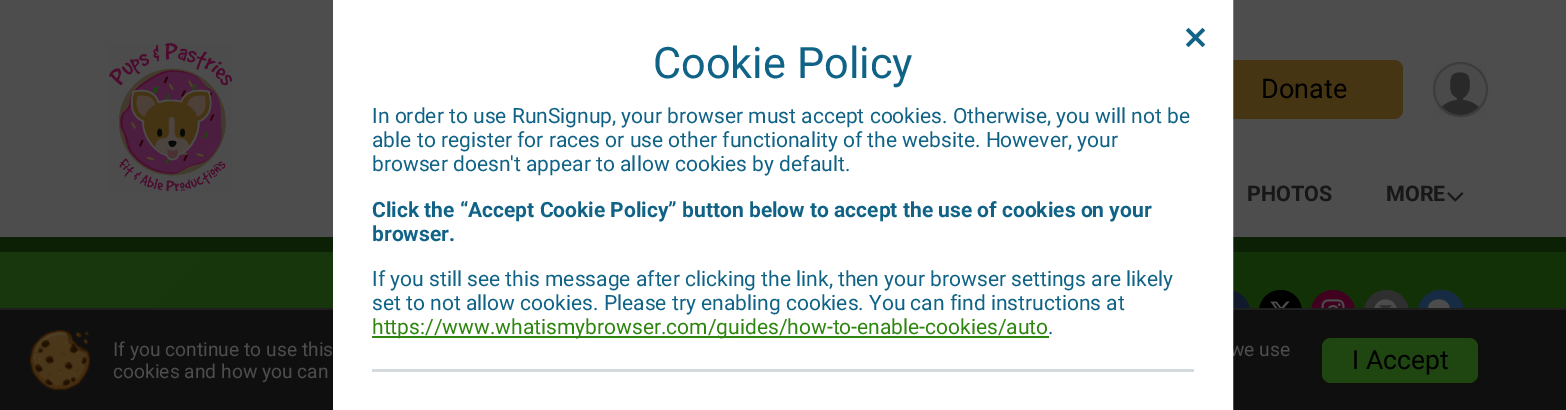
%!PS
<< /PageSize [1566 410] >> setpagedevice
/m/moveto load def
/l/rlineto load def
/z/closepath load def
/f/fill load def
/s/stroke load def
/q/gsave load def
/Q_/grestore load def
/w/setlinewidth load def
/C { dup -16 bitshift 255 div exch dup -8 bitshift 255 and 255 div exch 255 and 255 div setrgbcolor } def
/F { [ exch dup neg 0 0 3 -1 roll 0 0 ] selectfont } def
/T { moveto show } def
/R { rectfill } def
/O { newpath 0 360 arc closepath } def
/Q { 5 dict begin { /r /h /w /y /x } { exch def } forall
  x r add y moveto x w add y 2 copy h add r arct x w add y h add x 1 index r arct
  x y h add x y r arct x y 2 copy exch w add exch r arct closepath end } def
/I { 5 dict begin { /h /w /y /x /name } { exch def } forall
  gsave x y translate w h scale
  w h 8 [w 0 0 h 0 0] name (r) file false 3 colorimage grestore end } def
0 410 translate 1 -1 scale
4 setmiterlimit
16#4D4D4D C
0 0 1566 410 R
16#463513 C
1206 60 197 59 9 Q f
q 0 252 m 1566 0 l 0 56 l -1566 0 l z clip newpath
<< /ShadingType 2 /ColorSpace /DeviceRGB /Coords [1221 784 345 -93] /Extend [true true] /Function << /FunctionType 2 /Domain [0 1] /C0 [.067 .188 .02] /C1 [.098 .22 .051] /N 1 >> >> shfill Q_
16#0B2004 C
0 237 1566 15 R
16#11192D C
1227.5 312.5 22.5 O f
16#000000 C
1259 290 43 45 21.5 Q f
16#40011F C
1311 290 44 45 22 Q f
16#2F2F2F C
1386.5 312.5 22.5 O f
16#172C44 C
1418 290 46 45 22.5 Q f
16#0F0F0F C
0 310 1566 100 R
16#1F1F1F C
0 308 1566 2 R
/Roboto-Regular 19.25 F
16#4D4D4D C
(we use) 1230 356 T
16#FFFFFF C
2 w
334 1 898 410 rectstroke
335 2 896 408 R
(1.rgb) 1185 27 21 21 I
/Roboto-Regular 43.25 F
16#106386 C
(Cookie Policy) 653 78 T
/Roboto-Regular 21 F
(In order to use RunSignup, your browser must accept cookies. Otherwise, you will not be) 372 123 T
(able to register for races or use other functionality of the website. However, your) 372 147 T
(browser doesn't appear to allow cookies by default.) 372 171 T
/Roboto-Bold 21 F
(Click the “Accept Cookie Policy” button below to accept the use of cookies on your) 372 217 T
(browser.) 372 241 T
/Roboto-Regular 21 F
(If you still see this message after clicking the link, then your browser settings are likely) 372 286 T
(set to not allow cookies. Please try enabling cookies. You can find instructions at) 372 310 T
16#2E850F C
372 336 677 2 R
(https://www.whatismybrowser.com/guides/how-to-enable-cookies/auto) 372 334 T
16#106386 C
(.) 1048 334 T
16#D3DBDF C
372 369 822 3 R
(2.rgb) 109 43 124 149 I
/Roboto-Regular 27 F
16#000000 C
(Donate) 1261 98 T
(3.rgb) 1434 63 52 53 I
16#3D3D3D C
1460.5 89.5 26.5 O s
/Roboto-Bold 21.5 F
16#171717 C
(PHOTOS) 1247 201 T
(MORE) 1386 201 T
(4.rgb) 1447 192 17 10 I
(5.rgb) 1270 301 20 7 I
(6.rgb) 1321 299 24 9 I
(7.rgb) 1374 299 23 9 I
(8.rgb) 1428 299 24 9 I
(9.rgb) 30 330 60 61 I
/Roboto-Regular 19.25 F
16#4D4D4D C
(If you continue to use this) 113 356 T
(cookies and how you can) 113 378 T
16#1F4610 C
1322 338 156 45 9 Q f
/Roboto-Regular 26.5 F
16#000000 C
(I Accept) 1352 369 T
showpage
